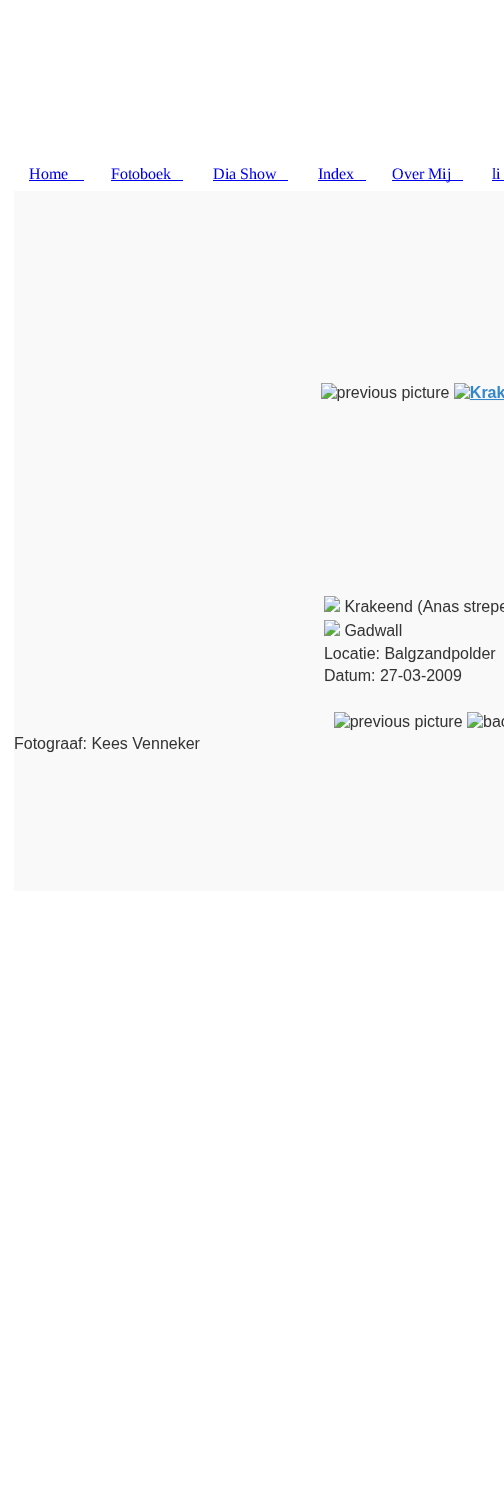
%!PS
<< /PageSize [504 1494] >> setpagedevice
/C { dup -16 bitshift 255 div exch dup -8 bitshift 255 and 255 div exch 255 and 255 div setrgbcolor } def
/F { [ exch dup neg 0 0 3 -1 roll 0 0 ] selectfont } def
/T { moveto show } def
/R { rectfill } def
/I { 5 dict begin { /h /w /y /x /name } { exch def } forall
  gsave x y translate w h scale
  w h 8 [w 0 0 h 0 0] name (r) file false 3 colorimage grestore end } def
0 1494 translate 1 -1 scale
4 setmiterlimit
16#FFFFFF C
0 0 504 1494 R
/LiberationSerif-Regular 16 F
16#0000EE C
(Home) 29 179 T
29 180 55 1 R
(Fotoboek) 111 179 T
111 180 72 1 R
(Dia Show) 213 179 T
213 180 75 1 R
(Index) 318 179 T
318 180 48 1 R
392 180 71 1 R
(Over Mij) 392 179 T
(li) 492 179 T
492 180 12 1 R
(1.rgb) 14 191 490 700 I
showpage
